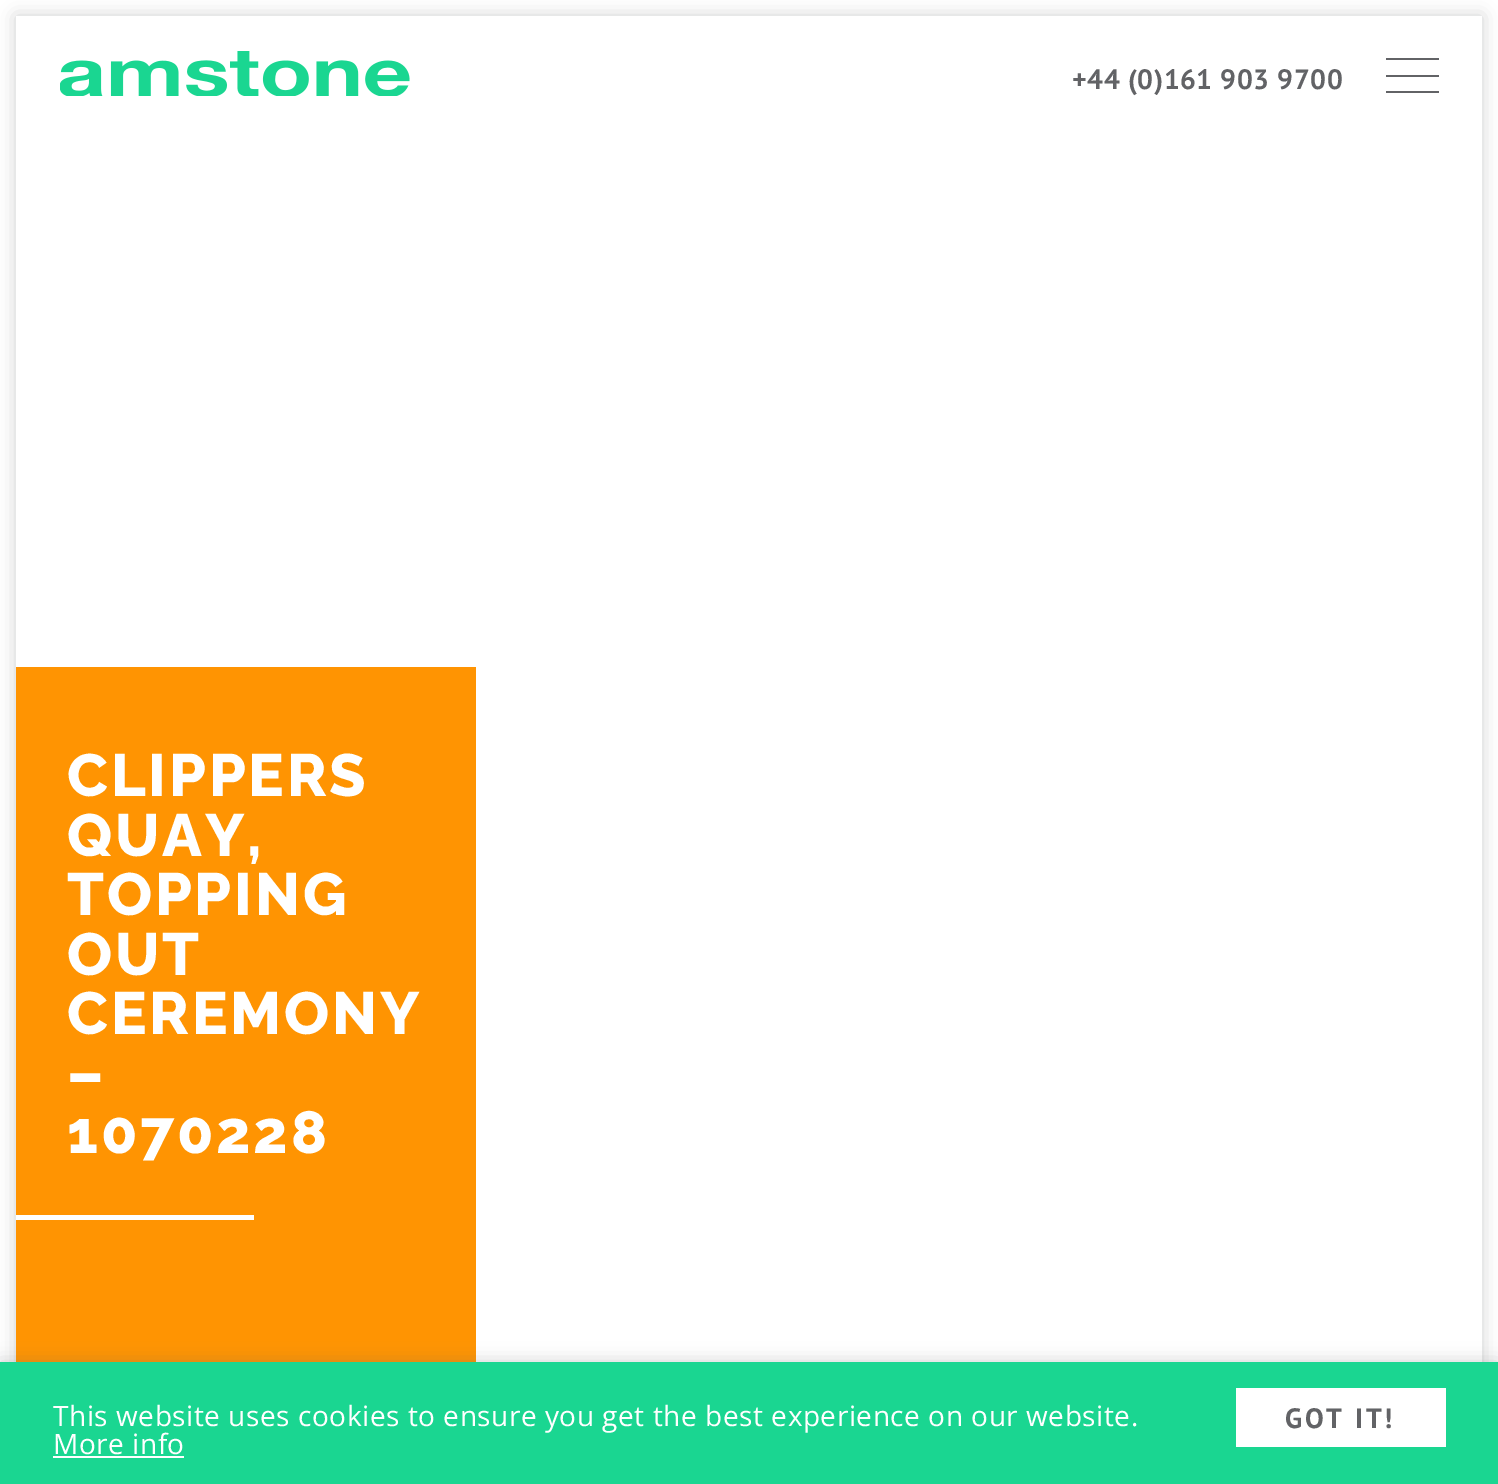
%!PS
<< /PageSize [1498 1484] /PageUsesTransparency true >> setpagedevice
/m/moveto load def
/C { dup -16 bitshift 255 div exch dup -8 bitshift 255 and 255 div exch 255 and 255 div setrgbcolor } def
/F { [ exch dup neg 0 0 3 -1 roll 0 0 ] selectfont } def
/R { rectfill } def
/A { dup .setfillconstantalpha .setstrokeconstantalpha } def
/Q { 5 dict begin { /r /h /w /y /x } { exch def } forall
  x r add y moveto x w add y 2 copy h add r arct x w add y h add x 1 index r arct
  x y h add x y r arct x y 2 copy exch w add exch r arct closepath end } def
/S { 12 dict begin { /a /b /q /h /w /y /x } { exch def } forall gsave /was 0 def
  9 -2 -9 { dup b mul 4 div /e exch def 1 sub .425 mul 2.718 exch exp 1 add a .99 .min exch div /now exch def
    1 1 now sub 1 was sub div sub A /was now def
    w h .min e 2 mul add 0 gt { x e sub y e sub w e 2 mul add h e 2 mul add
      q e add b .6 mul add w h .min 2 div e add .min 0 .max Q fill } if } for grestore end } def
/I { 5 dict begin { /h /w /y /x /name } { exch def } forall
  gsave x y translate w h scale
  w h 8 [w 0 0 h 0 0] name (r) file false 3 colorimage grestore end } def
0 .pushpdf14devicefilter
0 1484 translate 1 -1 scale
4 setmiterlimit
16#FFFFFF C
0 0 1498 1484 R
16#626366 C
16 16 1466 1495 0 9 .3 S
16#FFFFFF C
16 16 1466 1346 R
(1.rgb) 60 51 350 45 I
/PTSans-Bold 28 F
16#626366 C
1072 89 m .55 0 (+44 \(0\)161 903 9700) ashow
1386 58 53 2 R
1386 75 53 2 R
1386 91 53 2 R
16#FF9402 C
16 667 460 695 R
/Raleway-ExtraBold 59.5 F
16#FFFFFF C
67 796 m 2.75 0 (CLIPPERS) ashow
67 856 m 2.75 0 (QUAY,) ashow
67 915 m 2.75 0 (TOPPING) ashow
67 975 m 2.75 0 (OUT) ashow
67 1034 m 2.75 0 (CEREMONY) ashow
67 1094 m 2.75 0 (–) ashow
67 1153 m 2.75 0 (1070228) ashow
16 1215 238 5 R
16#626366 C
0 1362 1498 122 0 9 .3 S
16#1AD691 C
0 1362 1498 122 R
/OpenSans-Regular 28 F
16#FFFFFF C
53 1426 m .55 0 (This website uses cookies to ensure you get the best experience on our website.) ashow
53 1454 m .55 0 (More info) ashow
53 1456 131 2 R
1236 1388 210 59 R
/PTSans-Bold 28 F
16#626366 C
1285 1428 m 2.75 0 (GOT IT!) ashow
.poppdf14devicefilter showpage
